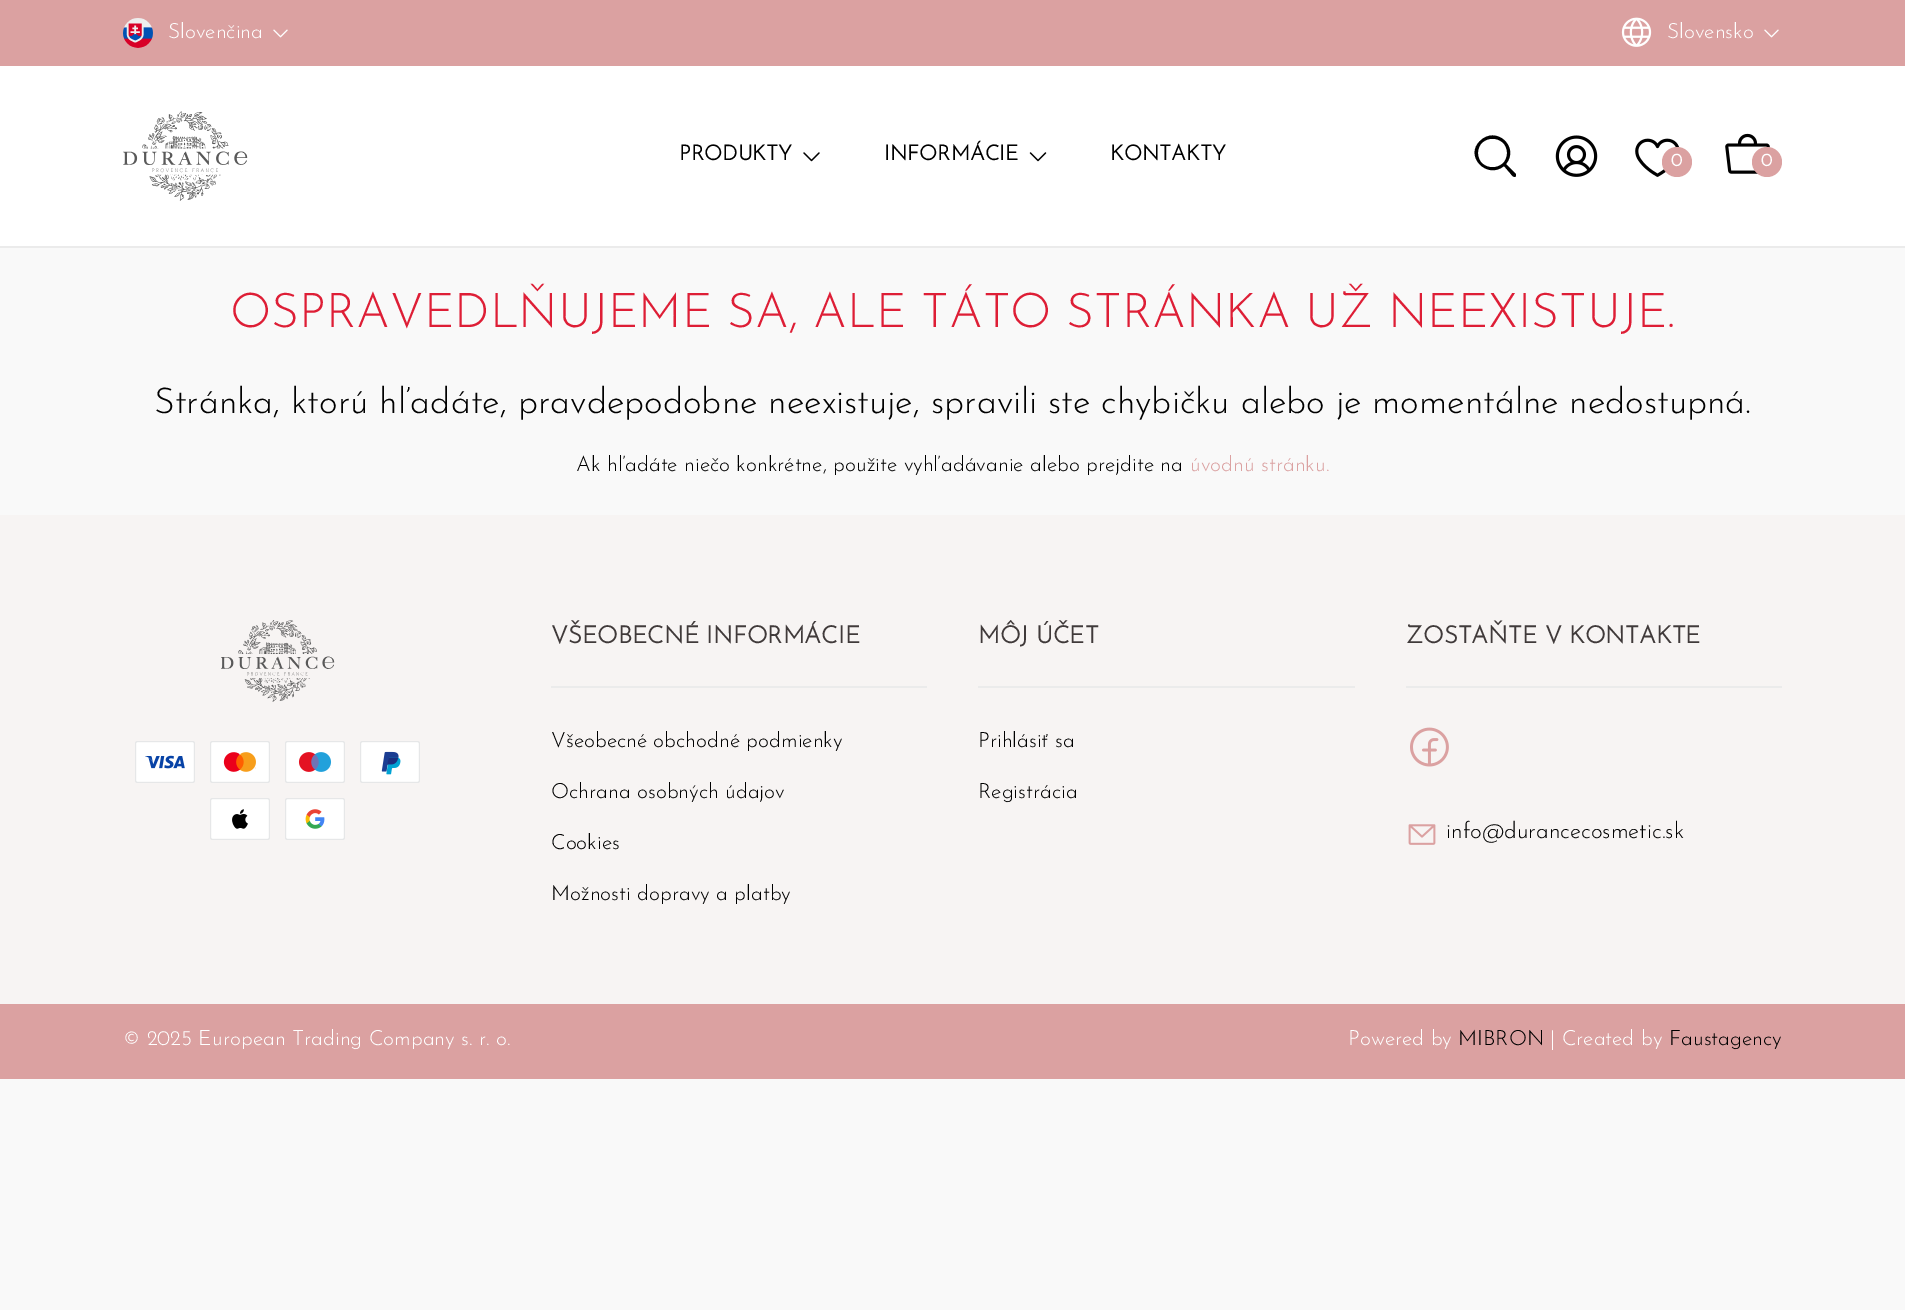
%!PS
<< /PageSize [1905 1310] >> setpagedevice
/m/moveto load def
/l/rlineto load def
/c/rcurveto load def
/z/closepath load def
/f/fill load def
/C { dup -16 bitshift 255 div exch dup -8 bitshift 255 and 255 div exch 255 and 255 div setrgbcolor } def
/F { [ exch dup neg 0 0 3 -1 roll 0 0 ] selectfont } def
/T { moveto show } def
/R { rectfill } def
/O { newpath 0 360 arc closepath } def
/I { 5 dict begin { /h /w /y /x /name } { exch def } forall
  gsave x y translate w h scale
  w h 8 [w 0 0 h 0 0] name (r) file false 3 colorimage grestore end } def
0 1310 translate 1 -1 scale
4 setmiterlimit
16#F9F9F9 C
0 0 1905 1310 R
16#DBA1A1 C
0 0 1905 66 R
(1.rgb) 123 18 30 30 I
/JosefinSans-Light 21 F
16#FFFFFF C
(Slovenčina) 168 38 T
(2.rgb) 273 29 15 9 I
(3.rgb) 1621 17 31 30 I
(Slovensko) 1667 38 T
(2.rgb) 1764 29 15 9 I
0 66 1905 180 R
16#EBEBEB C
0 246 1905 2 R
(4.rgb) 123 111 125 90 I
/JosefinSans-Bold 21 F
16#000000 C
(PRODUKTY) 679 160 T
(5.rgb) 803 152 17 10 I
(INFORMÁCIE) 884 160 T
(6.rgb) 1029 152 18 10 I
(KONTAKTY) 1110 160 T
1516 174 m -10 -10 l 14 -17 -10 -39 -26 -23 c -16 15 7 39 24 25 c 6 7 l 1 1 4 6 6 3 c z 1478 153 m 0 -19 29 -19 29 0 c 0 19 -29 19 -29 0 c z f
(7.rgb) 1555 135 43 42 I
(8.rgb) 1635 138 45 39 I
16#DBA1A1 C
1677 162 15 O f
/JosefinSans-Bold 18 F
16#FFFFFF C
(0) 1671 166 T
(9.rgb) 1725 133 45 41 I
16#DBA1A1 C
1767 162 15 O f
16#FFFFFF C
(0) 1761 166 T
/JosefinSans-Light 47.9 F
16#DE1E36 C
(OSPRAVEDLŇUJEME SA, ALE TÁTO STRÁNKA UŽ NEEXISTUJE.) 230 327 T
/JosefinSans-Light 35.7 F
16#000000 C
(Stránka, ktorú hľadáte, pravdepodobne neexistuje, spravili ste chybičku alebo je momentálne nedostupná.) 154 413 T
/JosefinSans-Light 21 F
(Ak hľadáte niečo konkrétne, použite vyhľadávanie alebo prejdite na) 576 471 T
16#DBA1A1 C
(úvodnú stránku.) 1190 471 T
16#F7F4F3 C
0 515 1905 489 R
(10.rgb) 221 620 114 82 I
(11.rgb) 135 741 60 42 I
(12.rgb) 210 741 60 42 I
(13.rgb) 285 741 60 42 I
(14.rgb) 360 741 60 42 I
(15.rgb) 210 798 60 42 I
(16.rgb) 285 798 60 42 I
16#EBEBEB C
551 686 376 2 R
/JosefinSans-Bold 24 F
16#403A3A C
(VŠEOBECNÉ INFORMÁCIE) 551 643 T
/JosefinSans-Light 21 F
16#000000 C
(Všeobecné obchodné podmienky) 551 747 T
(Ochrana osobných údajov) 551 798 T
(Cookies) 551 849 T
(Možnosti dopravy a platby) 551 900 T
16#EBEBEB C
978 686 377 2 R
/JosefinSans-Bold 24 F
16#403A3A C
(MÔJ ÚČET) 978 643 T
/JosefinSans-Light 21 F
16#000000 C
(Prihlásiť sa) 978 747 T
(Registrácia) 978 798 T
16#EBEBEB C
1406 686 376 2 R
/JosefinSans-Bold 24 F
16#403A3A C
(ZOSTAŇTE V KONTAKTE) 1406 643 T
(17.rgb) 1410 727 39 40 I
(18.rgb) 1408 824 28 21 I
/JosefinSans-Light 22.5 F
16#000000 C
(info@durancecosmetic.sk) 1446 838 T
16#DBA1A1 C
0 1004 1905 75 R
/JosefinSans-Light 21 F
16#FFFFFF C
(© 2025 European Trading Company s. r. o.) 123 1045 T
(Powered by) 1348 1045 T
16#000000 C
(MIBRON) 1458 1045 T
16#FFFFFF C
(| Created by) 1550 1045 T
16#000000 C
(Faustagency) 1669 1045 T
showpage
